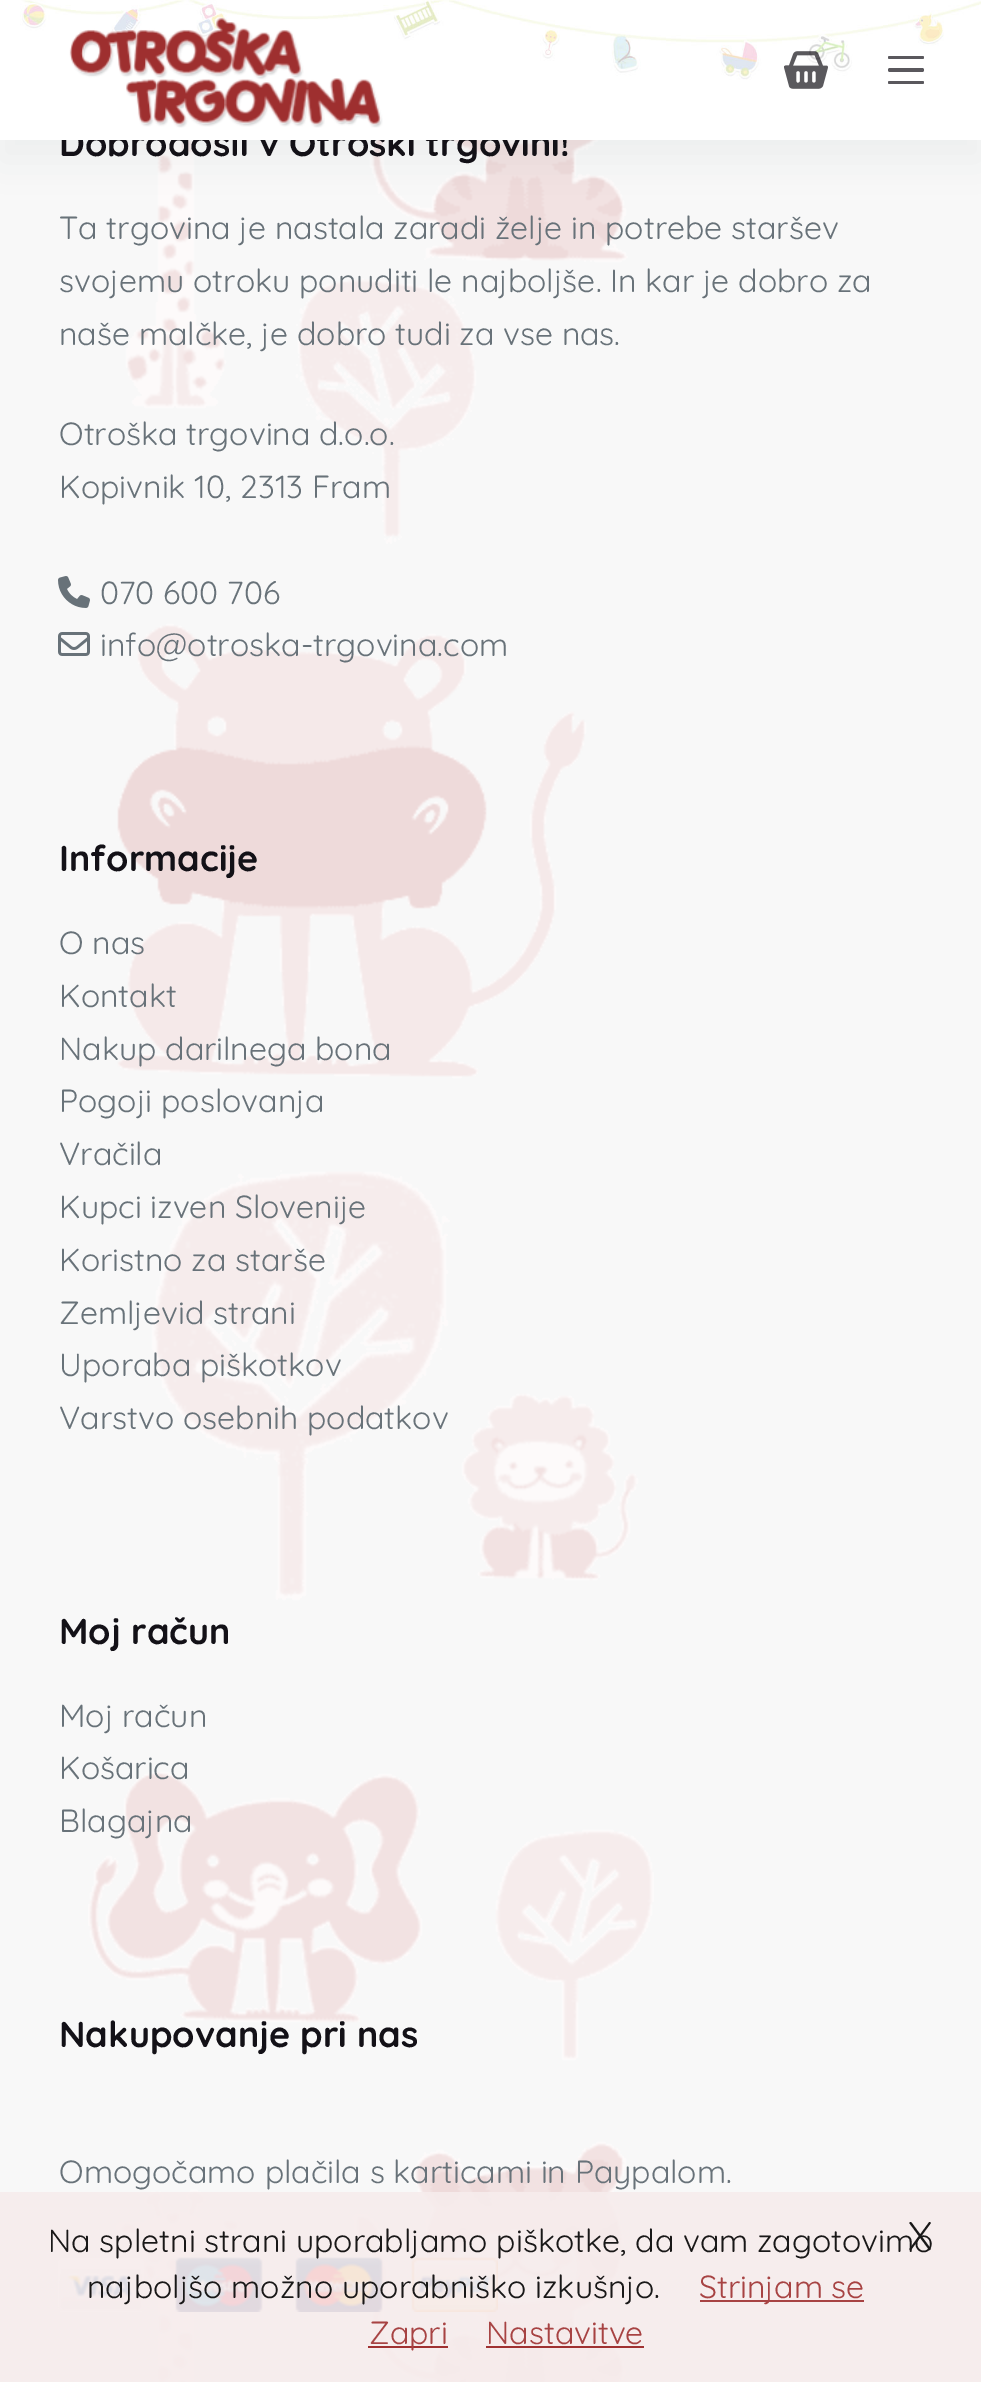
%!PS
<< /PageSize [981 2382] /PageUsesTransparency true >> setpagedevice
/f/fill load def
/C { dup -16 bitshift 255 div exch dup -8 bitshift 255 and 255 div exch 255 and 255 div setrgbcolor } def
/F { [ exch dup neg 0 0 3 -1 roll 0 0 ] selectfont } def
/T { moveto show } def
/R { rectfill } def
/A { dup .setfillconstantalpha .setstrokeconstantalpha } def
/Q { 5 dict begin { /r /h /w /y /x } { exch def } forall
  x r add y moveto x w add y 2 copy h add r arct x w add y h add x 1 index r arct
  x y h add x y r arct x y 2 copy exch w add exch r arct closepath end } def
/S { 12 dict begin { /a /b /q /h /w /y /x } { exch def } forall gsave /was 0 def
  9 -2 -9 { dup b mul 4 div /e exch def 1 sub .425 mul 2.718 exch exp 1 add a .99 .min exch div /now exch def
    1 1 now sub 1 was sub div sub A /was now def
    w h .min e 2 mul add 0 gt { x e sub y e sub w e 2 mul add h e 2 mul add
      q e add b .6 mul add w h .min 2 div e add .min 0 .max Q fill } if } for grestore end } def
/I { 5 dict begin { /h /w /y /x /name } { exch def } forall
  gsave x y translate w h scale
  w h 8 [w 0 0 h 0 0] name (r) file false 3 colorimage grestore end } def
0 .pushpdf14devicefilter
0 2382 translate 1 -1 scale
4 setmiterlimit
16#F8F8F8 C
0 0 981 2382 R
(4.rgb) 88 140 566 2242 I
16#2B3D50 C
0 20 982 140 0 20 .05 S
/Quicksand-Bold 36 F
16#131117 C
(Dobrodošli v Otroški trgovini!) 59 156 T
16#FFFFFF C
0 0 981 140 R
(1.rgb) 20 0 961 80 I
(2.rgb) 69 16 314 112 I
(3.rgb) 784 51 44 38 I
16#5A585D C
888 56 36 3 1.5 Q f
888 68 36 4 2 Q f
888 81 36 3 1.5 Q f
/Quicksand-Regular 32 F
16#687279 C
(Ta trgovina je nastala zaradi želje in potrebe staršev) 59 239 T
(svojemu otroku ponuditi le najboljše. In kar je dobro za) 59 292 T
(naše malčke, je dobro tudi za vse nas.) 59 345 T
(Otroška trgovina d.o.o.) 59 445 T
(Kopivnik 10, 2313 Fram) 59 498 T
(5.rgb) 58 576 32 32 I
(070 600 706) 100 604 T
(6.rgb) 58 632 32 24 I
(info@otroska-trgovina.com) 100 656 T
/Quicksand-Bold 36 F
16#131117 C
(Informacije) 59 871 T
/Quicksand-Regular 32 F
16#687279 C
(O nas) 59 954 T
(Kontakt) 59 1007 T
(Nakup darilnega bona) 59 1060 T
(Pogoji poslovanja) 59 1112 T
(Vračila) 59 1165 T
(Kupci izven Slovenije) 59 1218 T
(Koristno za starše) 59 1271 T
(Zemljevid strani) 59 1324 T
(Uporaba piškotkov) 59 1376 T
(Varstvo osebnih podatkov) 59 1429 T
/Quicksand-Bold 36 F
16#131117 C
(Moj račun) 59 1644 T
/Quicksand-Regular 32 F
16#687279 C
(Moj račun) 59 1727 T
(Košarica) 59 1779 T
(Blagajna) 59 1832 T
/Quicksand-Bold 36 F
16#131117 C
(Nakupovanje pri nas) 59 2047 T
/Quicksand-Regular 32 F
16#687279 C
(Omogočamo plačila s karticami in Paypalom.) 59 2183 T
(7.rgb) 58 2257 440 55 I
0.9 A
16#F6ECEC C
0 2192 981 190 R
1 A
16#191818 C
(Na spletni strani uporabljamo piškotke, da vam zagotovimo) 48 2252 T
/Quicksand-Regular 40 F
(X) 908 2250 T
/Quicksand-Regular 32 F
(najboljšo možno uporabniško izkušnjo.) 87 2298 T
16#A74343 C
700 2300 164 2 R
(Strinjam se) 699 2298 T
16#9F3131 C
368 2346 80 2 R
16#A74343 C
(Zapri) 369 2344 T
(Nastavitve) 486 2344 T
16#9F3131 C
486 2346 158 2 R
.poppdf14devicefilter showpage
